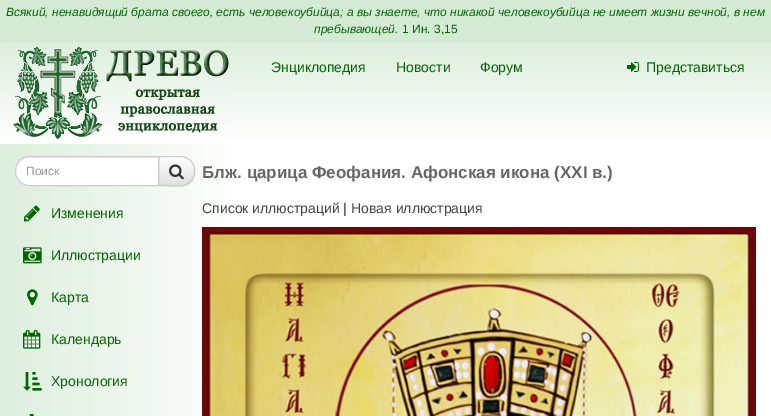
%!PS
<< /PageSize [771 416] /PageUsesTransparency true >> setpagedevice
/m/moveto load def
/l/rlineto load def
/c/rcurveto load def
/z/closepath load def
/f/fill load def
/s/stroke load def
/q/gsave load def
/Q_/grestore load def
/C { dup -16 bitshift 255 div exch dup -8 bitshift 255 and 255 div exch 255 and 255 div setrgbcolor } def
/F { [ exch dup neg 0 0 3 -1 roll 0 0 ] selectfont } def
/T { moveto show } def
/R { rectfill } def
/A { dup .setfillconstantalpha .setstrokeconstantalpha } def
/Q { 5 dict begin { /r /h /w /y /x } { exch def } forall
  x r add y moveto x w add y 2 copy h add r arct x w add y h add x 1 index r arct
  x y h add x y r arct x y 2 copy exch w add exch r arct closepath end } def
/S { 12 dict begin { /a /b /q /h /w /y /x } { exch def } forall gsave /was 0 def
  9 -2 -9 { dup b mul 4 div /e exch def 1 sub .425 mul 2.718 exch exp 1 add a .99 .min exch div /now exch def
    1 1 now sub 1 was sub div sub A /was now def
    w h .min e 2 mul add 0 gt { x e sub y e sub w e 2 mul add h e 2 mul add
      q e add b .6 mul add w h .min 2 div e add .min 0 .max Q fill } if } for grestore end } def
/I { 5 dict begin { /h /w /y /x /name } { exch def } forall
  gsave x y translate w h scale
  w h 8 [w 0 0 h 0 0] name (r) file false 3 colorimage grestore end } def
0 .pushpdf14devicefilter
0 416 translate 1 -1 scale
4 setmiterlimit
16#FFFFFF C
0 0 771 416 R
16#D5EAD5 C
0 0 771 42 R
/LiberationSans-Italic 12 F
16#006600 C
(Всякий, ненавидящий брата своего, есть человекоубийца; а вы знаете, что никакой человекоубийца не имеет жизни вечной, в нем) 6 16 T
(пребывающей.) 314 33 T
/LiberationSans-Regular 12 F
(1 Ин. 3,15) 402 33 T
q 0 42 m 771 0 l 0 95 l -771 0 l z clip newpath
<< /ShadingType 2 /ColorSpace /DeviceRGB /Coords [386 42 386 144] /Extend [true true] /Function << /FunctionType 2 /Domain [0 1] /C0 [.867 .933 .867] /C1 [1 1 1] /N 1 >> >> shfill Q_
(1.rgb) 13 45 216 95 I
/LiberationSans-Regular 14 F
(Энциклопедия) 271 72 T
(Новости) 396 72 T
(Форум) 480 72 T
(2.rgb) 627 62 12 10 I
(Представиться) 646 72 T
q 0 144 m 232 0 l 0 272 l -232 0 l z clip newpath
<< /ShadingType 2 /ColorSpace /DeviceRGB /Coords [0 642 250 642] /Extend [true true] /Function << /FunctionType 2 /Domain [0 1] /C0 [.867 .933 .867] /C1 [1 1 1] /N 1 >> >> shfill Q_
16#000000 C
158 157 37 30 14 .5 .07 S
q
158 156 m 23 0 l 7.5 0 14 6.5 14 14 c 0 2 l 0 7.5 -6.5 14 -14 14 c -23 0 l z clip newpath
q 159 157 m 36 0 l 0 28 l -36 0 l z clip newpath
<< /ShadingType 2 /ColorSpace /DeviceRGB /Coords [177 157 177 185] /Extend [true true] /Function << /FunctionType 2 /Domain [0 1] /C0 [1 1 1] /C1 [.878 .878 .878] /N 1 >> >> shfill Q_
Q_
16#CCCCCC C
158.5 156.5 m 22.5 0 l 7.5 0 13.5 6 13.5 13.5 c 0 2 l 0 7.5 -6 13.5 -13.5 13.5 c -22.5 0 l z s
16#FFFFFF C
29 156 m 130 0 l 0 30 l -130 0 l -7.5 0 -14 -6.5 -14 -14 c 0 -2 l 0 -7.5 6.5 -14 14 -14 c z f
16#ECECEC C
29 158 m 129 0 l 0 -1 l -129 0 l -7 0 -13 6 -13 13 c 1 -6 5 -12 13 -12 c z f
16#CCCCCC C
29 156.5 m 129.5 0 l 0 29 l -129.5 0 l -7.5 0 -13.5 -6 -13.5 -13.5 c 0 -2 l 0 -7.5 6 -13.5 13.5 -13.5 c z s
/LiberationSans-Regular 12 F
16#999999 C
(Поиск) 26 175 T
(3.rgb) 169 164 15 16 I
(4.rgb) 24 205 16 17 I
/LiberationSans-Regular 14 F
16#006600 C
(Изменения) 51 218 T
(5.rgb) 23 247 19 17 I
(Иллюстрации) 51 260 T
(6.rgb) 27 289 11 17 I
(Карта) 51 302 T
(7.rgb) 23 330 18 19 I
(Календарь) 51 344 T
(8.rgb) 23 372 19 19 I
(Хронология) 51 386 T
(9.rgb) 29 414 5 2 I
/LiberationSans-Bold 17 F
16#666666 C
(Блж. царица Феофания. Афонская икона \(XXI в.\)) 202 178 T
/LiberationSans-Regular 14 F
16#444444 C
(Список иллюстраций) 202 213 T
16#333333 C
(|) 343 213 T
16#444444 C
(Новая иллюстрация) 351 213 T
(10.rgb) 202 227 554 189 I
.poppdf14devicefilter showpage
